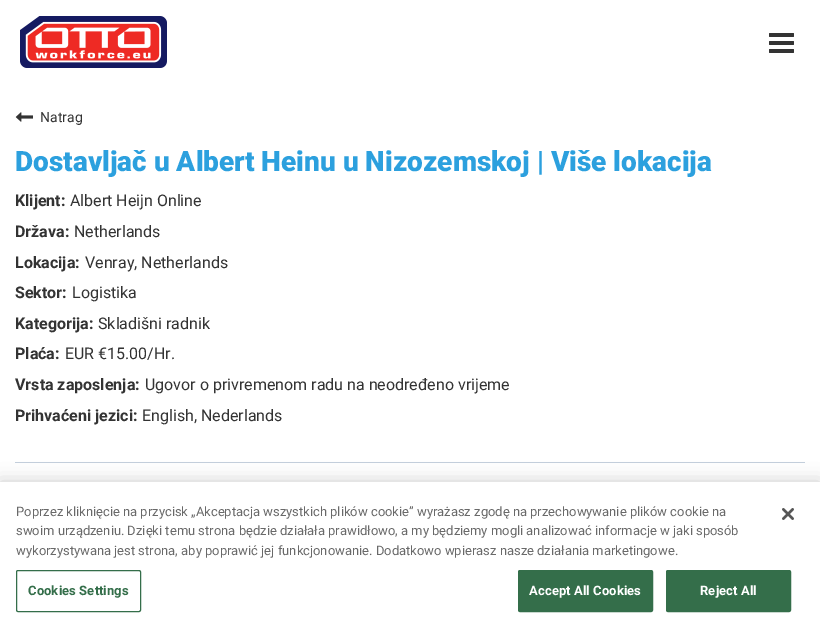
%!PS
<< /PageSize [820 632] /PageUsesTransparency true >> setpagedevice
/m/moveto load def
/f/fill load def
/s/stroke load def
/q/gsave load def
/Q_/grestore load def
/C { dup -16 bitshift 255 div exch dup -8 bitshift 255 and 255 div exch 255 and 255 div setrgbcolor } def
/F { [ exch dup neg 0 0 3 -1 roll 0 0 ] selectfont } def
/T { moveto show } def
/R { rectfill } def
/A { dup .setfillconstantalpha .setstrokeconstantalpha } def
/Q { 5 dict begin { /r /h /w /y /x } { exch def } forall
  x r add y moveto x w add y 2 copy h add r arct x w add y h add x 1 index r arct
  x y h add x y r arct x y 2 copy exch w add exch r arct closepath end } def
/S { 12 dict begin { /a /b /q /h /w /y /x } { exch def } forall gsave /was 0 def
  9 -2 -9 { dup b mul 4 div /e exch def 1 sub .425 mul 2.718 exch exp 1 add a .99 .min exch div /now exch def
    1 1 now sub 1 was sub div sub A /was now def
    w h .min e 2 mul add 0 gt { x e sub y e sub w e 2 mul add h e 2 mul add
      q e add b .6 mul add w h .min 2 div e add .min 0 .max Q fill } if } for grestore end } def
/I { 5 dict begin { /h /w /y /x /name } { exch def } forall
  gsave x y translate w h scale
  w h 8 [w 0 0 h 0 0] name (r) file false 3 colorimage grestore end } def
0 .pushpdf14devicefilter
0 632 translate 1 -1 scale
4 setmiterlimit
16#FFFFFF C
0 0 820 632 R
(1.rgb) 20 16 147 52 I
16#333333 C
769 33 25 4 1 Q f
769 41 25 4 1 Q f
769 49 25 4 1 Q f
(2.rgb) 15 112 18 10 I
/Roboto-Regular 14 F
(Natrag) 40 122 T
16#C5D0DD C
15 462 790 1 R
/Roboto-Black 28 F
16#2CA0DE C
(Dostavljač u Albert Heinu u Nizozemskoj | Više lokacija) 15 171 T
/Roboto-Bold 16 F
16#333333 C
(Klijent:) 15 206 T
/Roboto-Regular 16 F
(Albert Heijn Online) 70 206 T
/Roboto-Bold 16 F
(Država:) 15 237 T
/Roboto-Regular 16 F
(Netherlands) 74 237 T
/Roboto-Bold 16 F
(Lokacija:) 15 268 T
/Roboto-Regular 16 F
(Venray, Netherlands) 85 268 T
/Roboto-Bold 16 F
(Sektor:) 15 298 T
/Roboto-Regular 16 F
(Logistika) 72 298 T
/Roboto-Bold 16 F
(Kategorija:) 15 329 T
/Roboto-Regular 16 F
(Skladišni radnik) 98 329 T
/Roboto-Bold 16 F
(Plaća:) 15 359 T
/Roboto-Regular 16 F
(EUR €15.00/Hr.) 65 359 T
/Roboto-Bold 16 F
(Vrsta zaposlenja:) 15 390 T
/Roboto-Regular 16 F
(Ugovor o privremenom radu na neodređeno vrijeme) 145 390 T
/Roboto-Bold 16 F
(Prihvaćeni jezici:) 15 421 T
/Roboto-Regular 16 F
(English, Nederlands) 142 421 T
16#000000 C
0 482 820 150 0 9 .2 S
16#FFFFFF C
0 482 820 150 R
/Roboto-Regular 13 F
16#696969 C
(Poprzez kliknięcie na przycisk „Akceptacja wszystkich plików cookie” wyrażasz zgodę na przechowywanie plików cookie na) 16 516 T
(swoim urządzeniu. Dzięki temu strona będzie działała prawidłowo, a my będziemy mogli analizować informacje w jaki sposób) 16 535 T
(wykorzystywana jest strona, aby poprawić jej funkcjonowanie. Dodatkowo wpierasz nasze działania marketingowe.) 16 555 T
16#346E4A C
16.5 570.5 124 41 1.5 Q s
/Roboto-Bold 13 F
28 595 m .1 0 (Cookies Settings) ashow
518.5 570.5 134 41 1.5 Q q f Q_
s
16#FFFFFF C
529 595 m .1 0 (Accept All Cookies) ashow
16#346E4A C
666.5 570.5 124 41 1.5 Q q f Q_
s
16#FFFFFF C
700 595 m .1 0 (Reject All) ashow
(3.rgb) 782 508 12 12 I
.poppdf14devicefilter showpage
